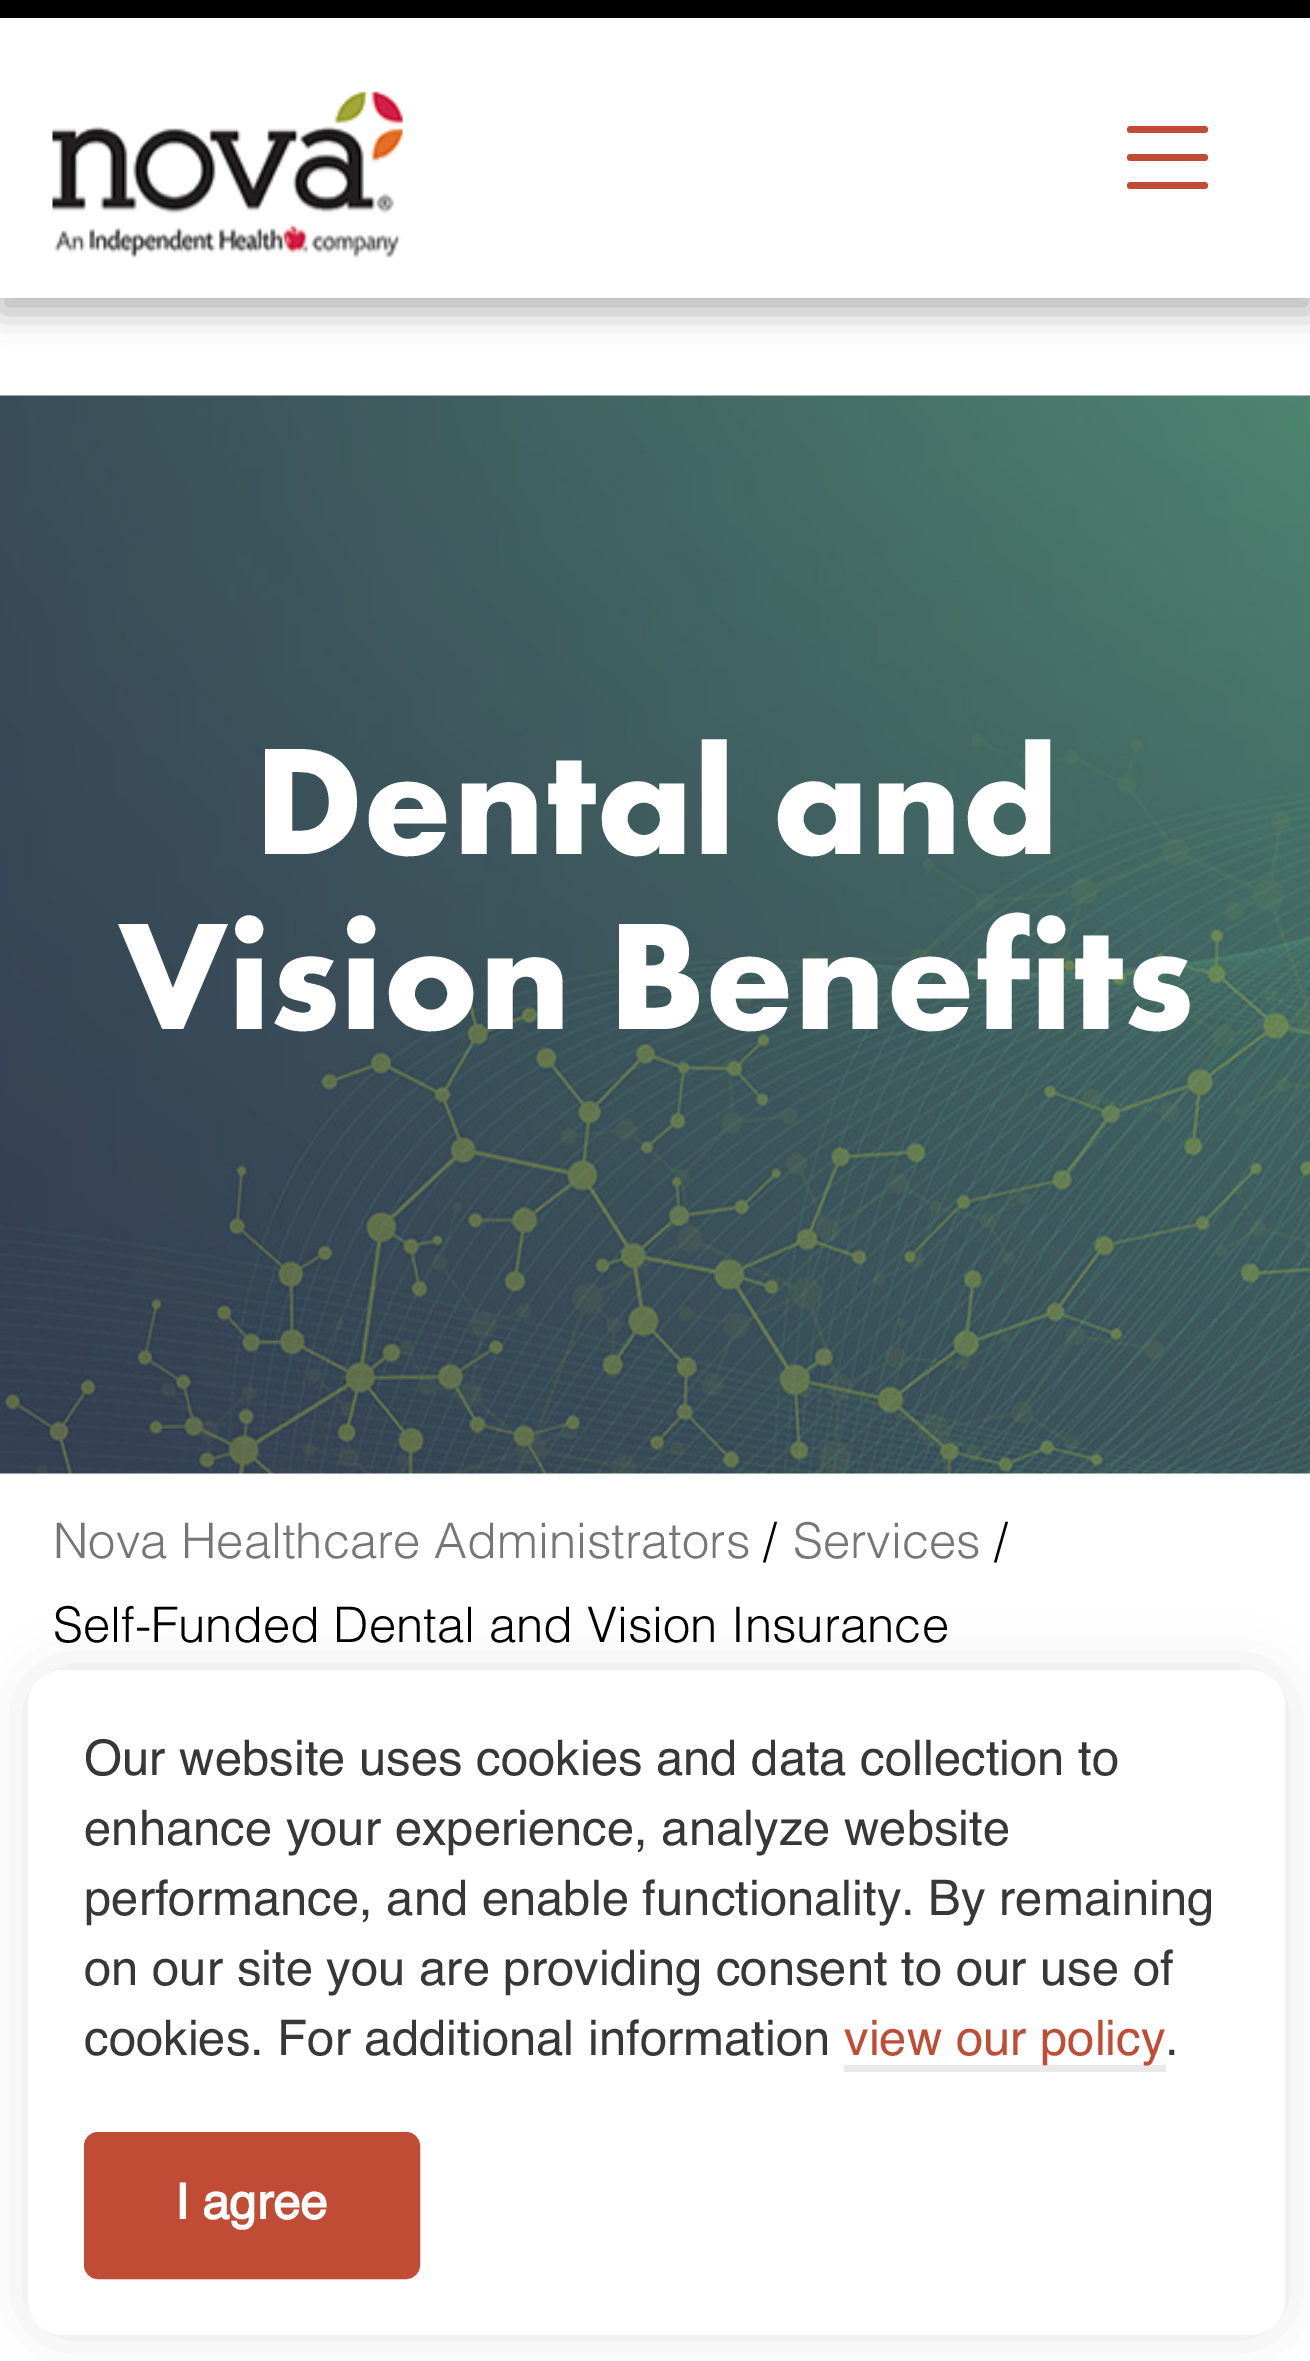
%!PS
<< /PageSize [1310 2361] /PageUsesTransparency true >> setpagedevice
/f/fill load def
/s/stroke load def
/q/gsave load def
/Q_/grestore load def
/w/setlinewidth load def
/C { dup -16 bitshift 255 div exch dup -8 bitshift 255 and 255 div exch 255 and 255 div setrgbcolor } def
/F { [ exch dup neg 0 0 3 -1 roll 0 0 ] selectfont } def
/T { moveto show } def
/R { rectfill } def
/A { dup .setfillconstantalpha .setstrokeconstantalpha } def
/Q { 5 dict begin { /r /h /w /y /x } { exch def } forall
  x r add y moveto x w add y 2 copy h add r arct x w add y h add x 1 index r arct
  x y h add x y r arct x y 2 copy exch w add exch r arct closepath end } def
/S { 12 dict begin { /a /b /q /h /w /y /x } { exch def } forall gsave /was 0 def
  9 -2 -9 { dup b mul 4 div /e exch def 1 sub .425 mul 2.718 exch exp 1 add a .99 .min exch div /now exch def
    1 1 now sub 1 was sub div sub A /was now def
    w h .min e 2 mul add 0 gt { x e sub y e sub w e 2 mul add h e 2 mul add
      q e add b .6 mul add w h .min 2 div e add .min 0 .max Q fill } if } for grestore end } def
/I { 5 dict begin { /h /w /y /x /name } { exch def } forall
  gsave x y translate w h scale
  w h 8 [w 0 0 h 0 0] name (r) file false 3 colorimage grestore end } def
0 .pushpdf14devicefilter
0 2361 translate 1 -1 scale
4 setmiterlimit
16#FFFFFF C
0 0 1310 2361 R
16#000000 C
0 14 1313 298 0 17.5 .3 S
16#FFFFFF C
0 18 1310 280 R
16#000000 C
0 0 1310 18 R
(1.rgb) 52 91 351 167 I
16#C04C36 C
1127 126 81 7 3.5 Q f
1127 154 81 7 3.5 Q f
1127 182 81 7 3.5 Q f
(2.rgb) 0 395 1310 1079 I
/FuturaPT-Bold 157.5 F
16#FFFFFF C
(Dental and) 254 854 T
(Vision Benefits) 118 1029 T
/Helvetica-Light 49 F
16#767676 C
(Nova Healthcare Administrators) 53 1558 T
16#000000 C
(/) 763 1558 T
16#767676 C
(Services) 793 1558 T
16#000000 C
(/) 994 1558 T
(Self-Funded Dental and Vision Insurance) 53 1642 T
28 1670 1257 665 35 26 .1 S
16#FFFFFF C
28 1670 1257 665 35 Q f
/Helvetica-Regular 49 F
16#373737 C
(Our website uses cookies and data collection to) 84 1775 T
(enhance your experience, analyze website) 84 1845 T
(performance, and enable functionality. By remaining) 84 1915 T
(on our site you are providing consent to our use of) 84 1985 T
(cookies. For additional information) 84 2055 T
16#E9E9E9 C
844 2065 322 7 R
16#C04C36 C
(view our policy) 844 2055 T
16#373737 C
(.) 1165 2055 T
16#C04C36 C
87.5 2135.5 329 140 10.5 Q q f Q_
7 w
s
/Helvetica-Bold 49 F
16#FFFFFF C
(I agree) 175 2219 T
.poppdf14devicefilter showpage
